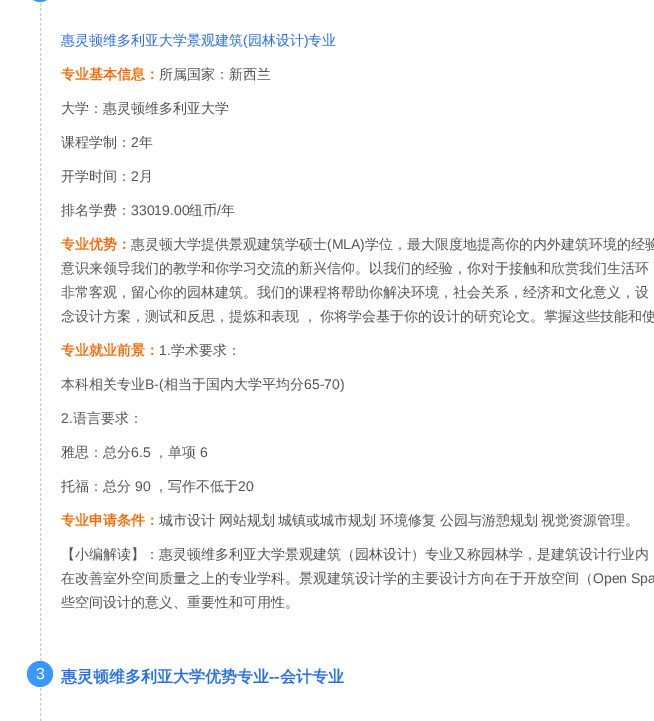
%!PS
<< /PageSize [654 721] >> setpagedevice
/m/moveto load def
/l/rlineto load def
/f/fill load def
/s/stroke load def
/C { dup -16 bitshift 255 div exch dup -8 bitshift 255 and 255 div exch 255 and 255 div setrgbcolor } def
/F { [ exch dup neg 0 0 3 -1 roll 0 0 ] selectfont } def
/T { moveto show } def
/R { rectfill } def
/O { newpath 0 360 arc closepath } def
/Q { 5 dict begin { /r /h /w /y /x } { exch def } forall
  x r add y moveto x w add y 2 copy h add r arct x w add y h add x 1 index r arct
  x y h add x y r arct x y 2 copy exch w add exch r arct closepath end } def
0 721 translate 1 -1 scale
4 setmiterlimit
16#FFFFFF C
0 0 654 721 R
16#CCCCCC C
[3 2] 0 setdash
40.5 -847 m 0 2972 l s
16#3898FE C
27 -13 26 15 13 Q f
/WenQuanYiZenHei-Medium 14 F
16#266FE8 C
(惠灵顿维多利亚大学景观建筑) 61 45 T
/LiberationSans-Regular 14 F
(\() 243 45 T
/WenQuanYiZenHei-Medium 14 F
(园林设计) 248 45 T
/LiberationSans-Regular 14 F
(\)) 304 45 T
/WenQuanYiZenHei-Medium 14 F
(专业) 308 45 T
/WenQuanYiZenHei-Bold 14 F
16#FF6600 C
(专业基本信息：) 61 79 T
/WenQuanYiZenHei-Medium 14 F
16#555555 C
(所属国家：新西兰) 159 79 T
(大学：惠灵顿维多利亚大学) 61 113 T
(课程学制：) 61 147 T
/LiberationSans-Regular 14 F
(2) 131 147 T
/WenQuanYiZenHei-Medium 14 F
(年) 139 147 T
(开学时间：) 61 181 T
/LiberationSans-Regular 14 F
(2) 131 181 T
/WenQuanYiZenHei-Medium 14 F
(月) 139 181 T
(排名学费：) 61 215 T
/LiberationSans-Regular 14 F
(33019.00) 131 215 T
/WenQuanYiZenHei-Medium 14 F
(纽币) 189 215 T
/LiberationSans-Regular 14 F
(/) 217 215 T
/WenQuanYiZenHei-Medium 14 F
(年) 221 215 T
/WenQuanYiZenHei-Bold 14 F
16#FF6600 C
(专业优势：) 61 249 T
/WenQuanYiZenHei-Medium 14 F
16#555555 C
(惠灵顿大学提供景观建筑学硕士) 131 249 T
/LiberationSans-Regular 14 F
(\(MLA\)) 327 249 T
/WenQuanYiZenHei-Medium 14 F
(学位，最大限度地提高你的内外建筑环境的经验) 365 249 T
(意识来领导我们的教学和你学习交流的新兴信仰。以我们的经验，你对于接触和欣赏我们生活环) 61 273 T
(非常客观，留心你的园林建筑。我们的课程将帮助你解决环境，社会关系，经济和文化意义，设) 61 297 T
61 321 m -.5 0 32 (念设计方案，测试和反思，提炼和表现 ， 你将学会基于你的设计的研究论文。掌握这些技能和使) widthshow
/WenQuanYiZenHei-Bold 14 F
16#FF6600 C
(专业就业前景：) 61 355 T
/LiberationSans-Regular 14 F
16#555555 C
(1.) 159 355 T
/WenQuanYiZenHei-Medium 14 F
(学术要求：) 171 355 T
(本科相关专业) 61 389 T
/LiberationSans-Regular 14 F
(B-\() 145 389 T
/WenQuanYiZenHei-Medium 14 F
(相当于国内大学平均分) 164 389 T
/LiberationSans-Regular 14 F
(65-70\)) 304 389 T
(2.) 61 423 T
/WenQuanYiZenHei-Medium 14 F
(语言要求：) 73 423 T
(雅思：总分) 61 457 T
/LiberationSans-Regular 14 F
(6.5) 131 457 T
/WenQuanYiZenHei-Medium 14 F
(，单项) 154 457 T
/LiberationSans-Regular 14 F
(6) 200 457 T
/WenQuanYiZenHei-Medium 14 F
(托福：总分) 61 491 T
/LiberationSans-Regular 14 F
(90) 135 491 T
/WenQuanYiZenHei-Medium 14 F
(，写作不低于) 154 491 T
/LiberationSans-Regular 14 F
(20) 238 491 T
/WenQuanYiZenHei-Bold 14 F
16#FF6600 C
(专业申请条件：) 61 525 T
/WenQuanYiZenHei-Medium 14 F
16#555555 C
159 525 m -.5 0 32 (城市设计 网站规划 城镇或城市规划 环境修复 公园与游憩规划 视觉资源管理。) widthshow
(【小编解读】：惠灵顿维多利亚大学景观建筑（园林设计）专业又称园林学，是建筑设计行业内) 61 559 T
(在改善室外空间质量之上的专业学科。景观建筑设计学的主要设计方向在于开放空间（) 61 583 T
/LiberationSans-Regular 14 F
(Open Spa) 593 583 T
/WenQuanYiZenHei-Medium 14 F
(些空间设计的意义、重要性和可用性。) 61 607 T
16#3898FE C
40 674 13 O f
/LiberationSans-Regular 16 F
16#FFFFFF C
(3) 36 679 T
/WenQuanYiZenHei-Bold 16 F
16#266FE8 C
(惠灵顿维多利亚大学优势专业) 61 682 T
/LiberationSans-Bold 16 F
(--) 269 682 T
/WenQuanYiZenHei-Bold 16 F
(会计专业) 280 682 T
showpage
